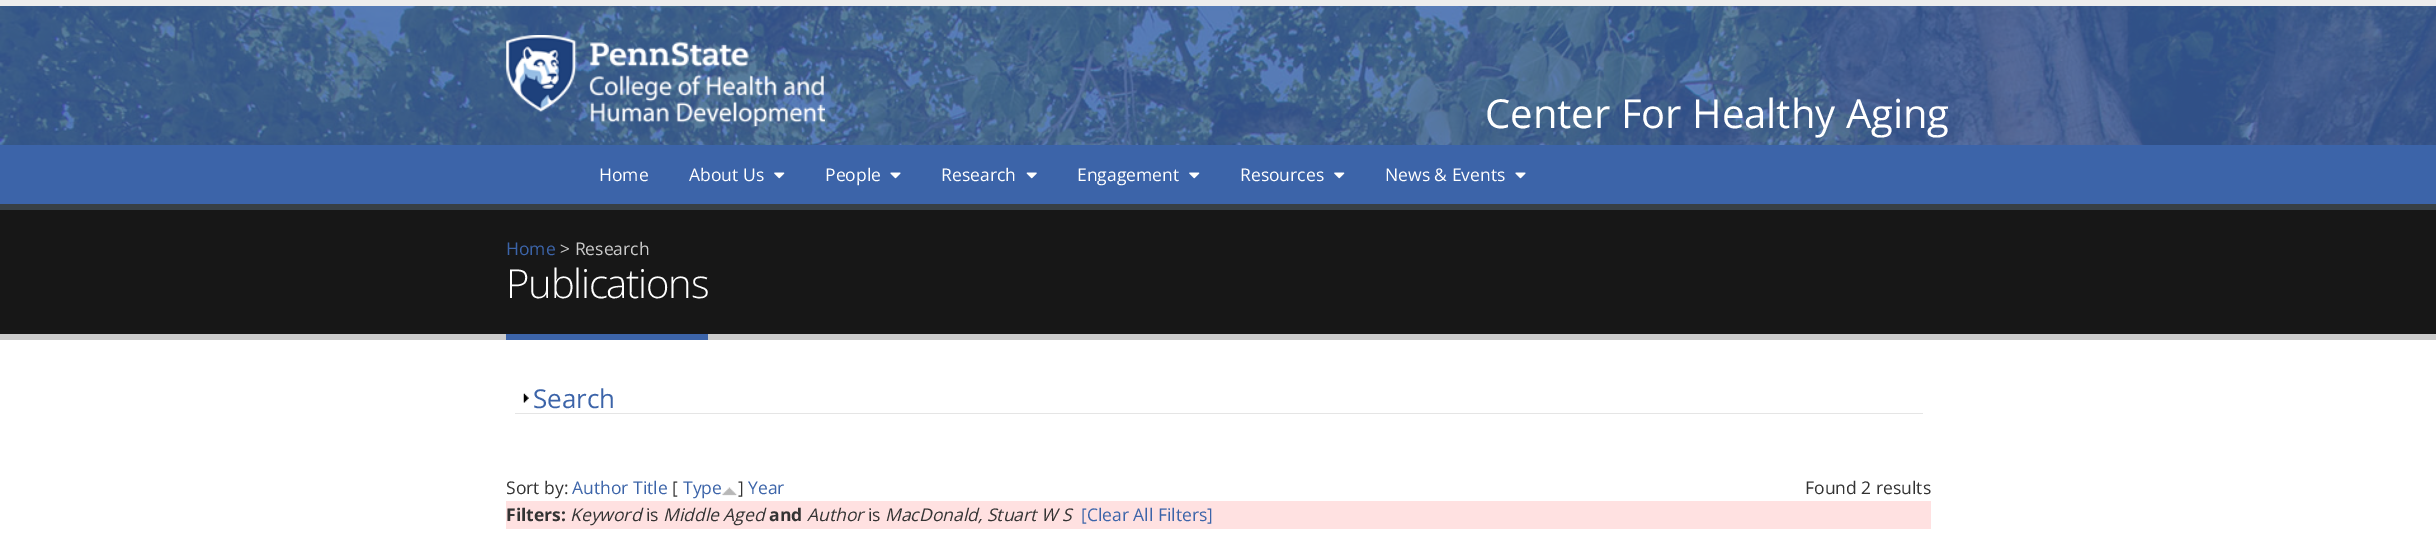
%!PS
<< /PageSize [2436 543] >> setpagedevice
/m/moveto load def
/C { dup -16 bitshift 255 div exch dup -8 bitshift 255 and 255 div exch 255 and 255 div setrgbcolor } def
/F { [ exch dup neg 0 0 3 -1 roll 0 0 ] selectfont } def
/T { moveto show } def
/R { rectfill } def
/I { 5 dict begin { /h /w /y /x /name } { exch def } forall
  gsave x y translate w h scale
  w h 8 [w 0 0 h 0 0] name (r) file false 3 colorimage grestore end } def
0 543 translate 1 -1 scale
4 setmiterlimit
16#FFFFFF C
0 0 2436 543 R
(1.rgb) 0 6 2436 139 I
16#EDEDED C
0 0 2436 6 R
(2.rgb) 506 35 319 92 I
/OpenSans-Regular 40 F
16#FFFFFF C
(Center For Healthy Aging) 1485 128 T
16#3C64A9 C
0 145 2436 59 R
/OpenSans-Regular 17.5 F
16#FFFFFF C
(Home) 599 181 T
(About Us) 689 181 T
(3.rgb) 774 172 11 7 I
(People) 825 181 T
(4.rgb) 890 172 11 7 I
(Research) 941 181 T
(5.rgb) 1026 172 11 7 I
(Engagement) 1077 181 T
(3.rgb) 1189 172 11 7 I
(Resources) 1240 181 T
(3.rgb) 1334 172 11 7 I
(News & Events) 1385 181 T
(4.rgb) 1515 172 11 7 I
16#171717 C
0 210 2436 124 R
16#384045 C
0 204 2436 6 R
16#CCCCCC C
0 334 2436 6 R
16#3C64A9 C
(Home) 506 255 T
16#CCCCCC C
(> Research) 560 255 T
16#3C64A9 C
506 334 202 6 R
/OpenSans-Light 40 F
16#FFFFFF C
506 298 m -1.25 0 (Publications) ashow
16#E5E5E5 C
515 413 1408 1 R
(6.rgb) 523 393 6 10 I
/OpenSans-Regular 26 F
16#3C64A9 C
(Search) 533 408 T
/OpenSans-Regular 17.5 F
16#333333 C
(Sort by:) 506 494 T
16#3C64A9 C
(Author Title) 572 494 T
16#333333 C
([) 672 494 T
16#3C64A9 C
(Type) 683 494 T
(7.rgb) 722 487 15 9 I
16#333333 C
(]) 738 494 T
16#3C64A9 C
(Year) 748 494 T
16#333333 C
(Found 2 results) 1805 494 T
16#FFE1E1 C
506 501 1425 28 R
/OpenSans-Bold 17.5 F
16#333333 C
(Filters:) 506 521 T
/OpenSans-Italic 17.5 F
(Keyword) 570 521 T
/OpenSans-Regular 17.5 F
(is) 646 521 T
/OpenSans-Italic 17.5 F
(Middle Aged) 663 521 T
/OpenSans-Bold 17.5 F
(and) 769 521 T
/OpenSans-Italic 17.5 F
(Author) 807 521 T
/OpenSans-Regular 17.5 F
(is) 868 521 T
/OpenSans-Italic 17.5 F
(MacDonald, Stuart W S) 885 521 T
/OpenSans-Regular 17.5 F
16#3C64A9 C
([Clear All Filters]) 1081 521 T
showpage
